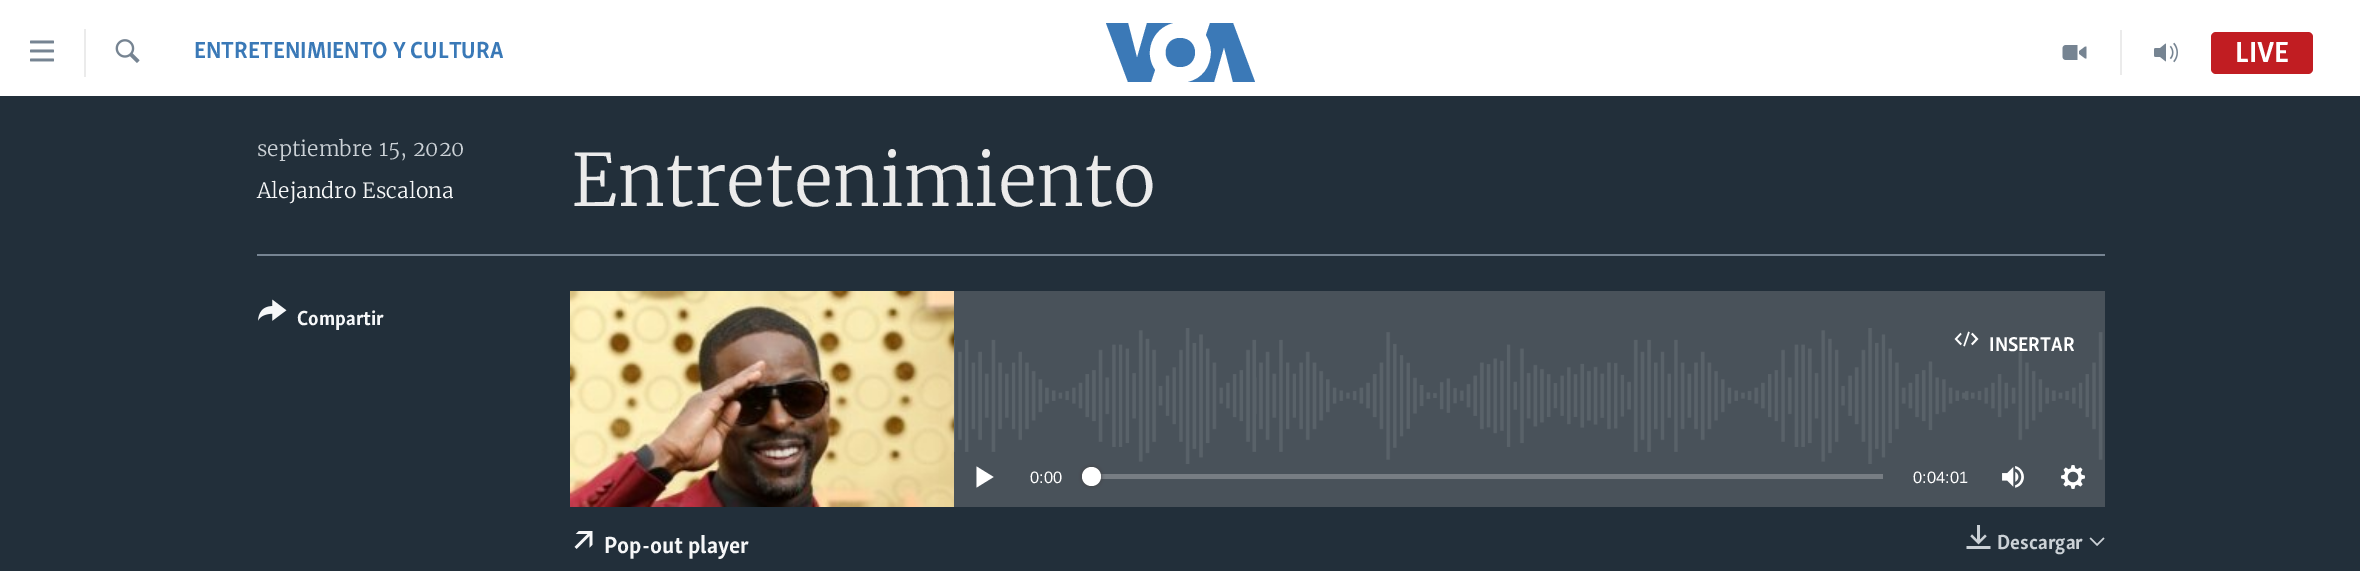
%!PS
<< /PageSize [2360 571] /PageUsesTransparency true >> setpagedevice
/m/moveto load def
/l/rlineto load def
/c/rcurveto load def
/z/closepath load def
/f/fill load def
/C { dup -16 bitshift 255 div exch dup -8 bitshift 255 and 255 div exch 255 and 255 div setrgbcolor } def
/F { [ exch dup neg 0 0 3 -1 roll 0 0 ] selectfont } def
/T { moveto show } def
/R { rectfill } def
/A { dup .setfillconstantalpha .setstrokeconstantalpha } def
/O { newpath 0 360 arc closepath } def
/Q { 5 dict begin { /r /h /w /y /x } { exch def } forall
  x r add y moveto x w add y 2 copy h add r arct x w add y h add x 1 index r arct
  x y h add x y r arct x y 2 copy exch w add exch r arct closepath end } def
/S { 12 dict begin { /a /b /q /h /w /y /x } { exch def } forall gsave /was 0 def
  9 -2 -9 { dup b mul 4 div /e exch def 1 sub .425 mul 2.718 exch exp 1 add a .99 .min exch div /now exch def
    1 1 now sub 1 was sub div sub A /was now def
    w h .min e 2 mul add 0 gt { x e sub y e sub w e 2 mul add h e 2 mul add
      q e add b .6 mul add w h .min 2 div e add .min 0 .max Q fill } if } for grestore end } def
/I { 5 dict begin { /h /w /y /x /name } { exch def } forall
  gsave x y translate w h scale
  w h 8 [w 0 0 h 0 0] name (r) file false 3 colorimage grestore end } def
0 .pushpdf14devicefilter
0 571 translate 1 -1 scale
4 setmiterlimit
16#FFFFFF C
0 0 2360 571 R
(1.rgb) 30 40 24 22 I
16#EBEBEB C
84 29 2 48 R
(2.rgb) 115 39 25 24 I
/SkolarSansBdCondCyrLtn-Bold 24 F
16#3A79B7 C
(ENTRETENIMIENTO Y CULTURA) 194 58 T
16#3B79B7 C
1155 70 m -4 12 l -23 0 l -22 -59 l 22 0 l 9 35 l 10 -35 l 26 0 l -21 5 -30 30 -18 47 c z 1180 38 m -19 0 -19 29 0 29 c 20 0 20 -29 0 -29 c z 1211 52 m 0 15 -9 27 -23 30 c 26 0 l 10 -35 l 9 35 l 22 0 l -22 -59 l -23 0 l -4 12 l 3 5 5 11 5 17 c z f
16#EBEBEB C
2120 30 2 45 R
(3.rgb) 2062 45 25 15 I
(4.rgb) 2154 42 24 21 I
16#C11D22 C
2211 32 102 42 5 Q f
/SkolarSansBdCondCyrLtn-Bold 30 F
16#FFFFFF C
(LIVE) 2235 62 T
16#222F3A C
0 96 2360 475 R
/Merriweather-Light 21 F
16#CBD1D6 C
(septiembre 15, 2020) 257 156 T
16#F6F7F8 C
(Alejandro Escalona) 257 198 T
/Merriweather-Light 72 F
16#EBEBEB C
(Entretenimiento) 571 206 T
16#768492 C
257 254 1848 2 R
(5.rgb) 258 299 29 22 I
/SkolarSansBdCondCyrLtn-Bold 21 F
16#F6F7F8 C
(Compartir) 297 325 T
16#49525A C
954 291 1151 216 R
(6.rgb) 954 328 1149 136 I
(7.rgb) 570 291 384 216 I
(8.rgb) 1954 331 25 16 I
/SkolarSansBdCondCyrLtn-Bold 20.5 F
16#FFFFFF C
(INSERTAR) 1989 351 T
976.5 487.5 m 17 -10.5 l -17 -10.5 l z f
/LiberationSans-Regular 16.5 F
(0:00) 1030 483 T
16#777D83 C
1100 474 783 5 R
16#414144 C
1082 467 19 19 9.5 2 1 S
16#FFFFFF C
1091.5 476.5 9.5 O f
(0:04:01) 1913 483 T
(9.rgb) 2002 466 22 22 I
(10.rgb) 2061 465 24 24 I
(11.rgb) 574 531 19 18 I
/SkolarSansBdCondCyrLtn-Bold 24 F
16#F6F7F8 C
(Pop-out player) 604 553 T
(12.rgb) 1966 525 25 24 I
/SkolarSansBdCondCyrLtn-Bold 21 F
16#CBD1D6 C
(Descargar) 1997 549 T
(13.rgb) 2089 537 16 9 I
.poppdf14devicefilter showpage
